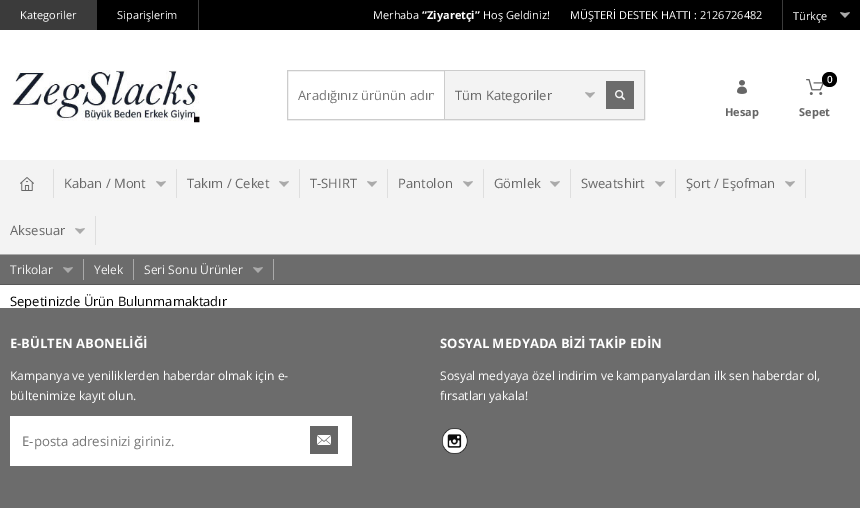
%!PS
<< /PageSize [860 508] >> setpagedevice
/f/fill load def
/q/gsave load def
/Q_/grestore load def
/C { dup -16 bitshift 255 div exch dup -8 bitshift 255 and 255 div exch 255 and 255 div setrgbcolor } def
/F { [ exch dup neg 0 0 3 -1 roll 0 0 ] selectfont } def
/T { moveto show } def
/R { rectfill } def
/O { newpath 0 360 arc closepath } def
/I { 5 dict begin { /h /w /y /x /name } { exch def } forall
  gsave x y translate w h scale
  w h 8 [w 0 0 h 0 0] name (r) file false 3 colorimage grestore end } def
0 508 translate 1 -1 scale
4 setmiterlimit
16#FFFFFF C
0 0 860 508 R
16#000000 C
97 0 763 30 R
16#3B3B3B C
0 0 97 30 R
/OpenSans-Regular 11 F
16#FFFFFF C
(Kategoriler) 20 19 T
16#3B3B3B C
198 0 1 30 R
16#FFFFFF C
(Siparişlerim) 117 19 T
(Merhaba) 373 19 T
/OpenSans-Bold 11 F
(“Ziyaretçi”) 422 19 T
/OpenSans-Regular 11 F
(Hoş Geldiniz!) 483 19 T
(MÜŞTERİ DESTEK HATTI : 2126726482) 570 19 T
(1.rgb) 840 12 10 6 I
16#3B3B3B C
782 0 1 30 R
16#FFFFFF C
(Türkçe) 793 20 T
(2.rgb) 10 70 190 53 I
16#CCCCCC C
287.5 70.5 357 49 rectstroke
q
298 86 136 18 rectclip
/OpenSans-Regular 13 F
16#757575 C
(Aradığınız ürünün adın) 298 100 T
Q_
16#F3F3F3 C
445 71 199 48 R
16#CCCCCC C
444 71 1 48 R
(3.rgb) 585 92 10 6 I
/OpenSans-Regular 13 F
16#666666 C
(Tüm Kategoriler) 455 100 T
16#6C6C6C C
606 81 28 28 R
(4.rgb) 615 90 10 10 I
16#ECECEC C
287 120 358 1 R
(5.rgb) 737 80 10 14 I
/OpenSans-Bold 11 F
16#666666 C
(Hesap) 725 116 T
(6.rgb) 806 79 18 16 I
16#000000 C
829.5 79.5 7.5 O f
/OpenSans-SemiBold 10 F
16#FFFFFF C
(0) 827 83 T
/OpenSans-Bold 11 F
16#666666 C
(Sepet) 799 116 T
16#F3F3F3 C
0 160 860 94 R
(7.rgb) 20 177 14 14 I
16#DEDEDE C
53 169 1 29 R
(3.rgb) 156 181 10 6 I
176 169 1 29 R
/OpenSans-Regular 13 F
16#666666 C
(Kaban / Mont) 64 188 T
(3.rgb) 279 181 10 6 I
16#DEDEDE C
299 169 1 29 R
16#666666 C
(Takım / Ceket) 187 188 T
(3.rgb) 367 181 10 6 I
16#DEDEDE C
387 169 1 29 R
16#666666 C
(T-SHIRT) 310 188 T
(3.rgb) 463 181 10 6 I
16#DEDEDE C
483 169 1 29 R
16#666666 C
(Pantolon) 398 188 T
(3.rgb) 550 181 10 6 I
16#DEDEDE C
570 169 1 29 R
16#666666 C
(Gömlek) 494 188 T
(3.rgb) 655 181 10 6 I
16#DEDEDE C
675 169 1 29 R
16#666666 C
(Sweatshirt) 581 188 T
(3.rgb) 785 181 10 6 I
16#DEDEDE C
805 169 1 29 R
16#666666 C
(Şort / Eşofman) 686 188 T
(3.rgb) 75 228 10 6 I
16#DEDEDE C
95 216 1 29 R
16#666666 C
(Aksesuar) 10 235 T
16#6C6C6C C
0 255 860 29 R
16#AAAAAA C
0 254 860 1 R
16#575757 C
0 284 860 1 R
(8.rgb) 63 267 10 6 I
16#AAAAAA C
83 259 1 21 R
/OpenSans-Regular 12 F
16#F3F3F3 C
(Trikolar) 10 274 T
16#AAAAAA C
133 259 1 21 R
16#F3F3F3 C
(Yelek) 94 274 T
(8.rgb) 253 267 10 6 I
16#AAAAAA C
273 259 1 21 R
16#F3F3F3 C
(Seri Sonu Ürünler) 144 274 T
/OpenSans-Regular 13 F
16#000000 C
(Sepetinizde Ürün Bulunmamaktadır) 10 306 T
16#6C6C6C C
0 308 860 200 R
/OpenSans-Bold 13 F
16#FFFFFF C
(E-BÜLTEN ABONELİĞİ) 10 348 T
/OpenSans-Regular 12 F
(Kampanya ve yeniliklerden haberdar olmak için e-) 10 380 T
(bültenimize kayıt olun.) 10 400 T
10 416 342 50 R
/OpenSans-Regular 13.25 F
16#757575 C
(E-posta adresinizi giriniz.) 22 446 T
(9.rgb) 310 426 28 28 I
/OpenSans-Bold 13 F
16#FFFFFF C
(SOSYAL MEDYADA BİZİ TAKİP EDİN) 440 348 T
/OpenSans-Regular 12 F
(Sosyal medyaya özel indirim ve kampanyalardan ilk sen haberdar ol,) 440 380 T
(fırsatları yakala!) 440 400 T
(10.rgb) 442 428 26 26 I
showpage
